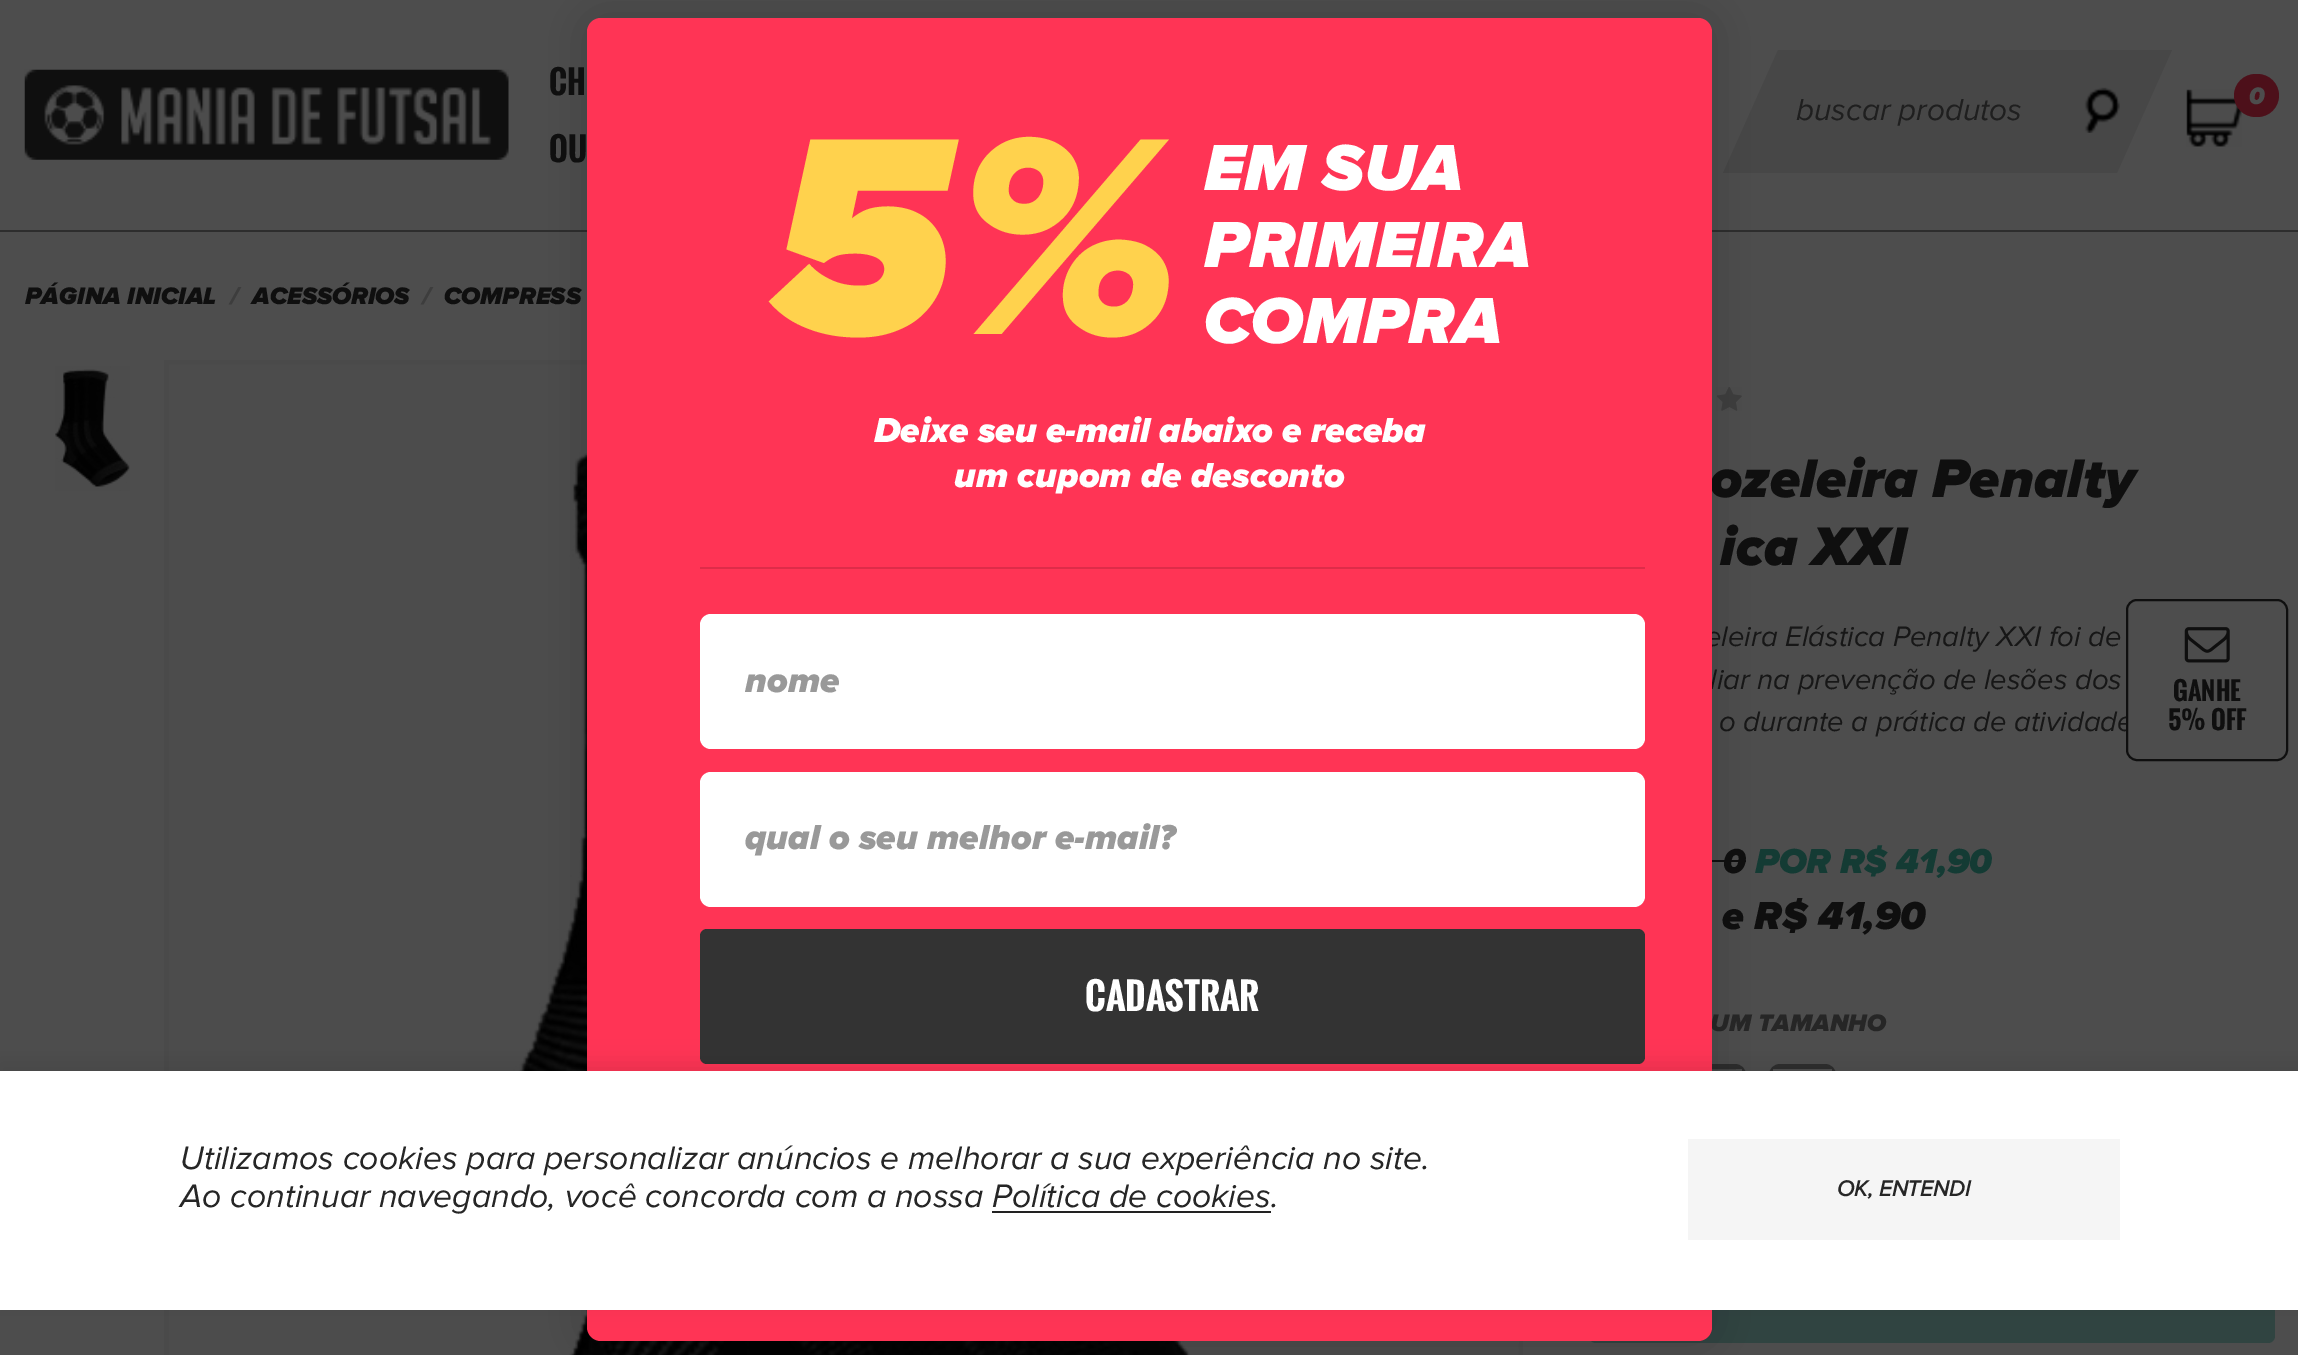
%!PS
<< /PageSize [2298 1355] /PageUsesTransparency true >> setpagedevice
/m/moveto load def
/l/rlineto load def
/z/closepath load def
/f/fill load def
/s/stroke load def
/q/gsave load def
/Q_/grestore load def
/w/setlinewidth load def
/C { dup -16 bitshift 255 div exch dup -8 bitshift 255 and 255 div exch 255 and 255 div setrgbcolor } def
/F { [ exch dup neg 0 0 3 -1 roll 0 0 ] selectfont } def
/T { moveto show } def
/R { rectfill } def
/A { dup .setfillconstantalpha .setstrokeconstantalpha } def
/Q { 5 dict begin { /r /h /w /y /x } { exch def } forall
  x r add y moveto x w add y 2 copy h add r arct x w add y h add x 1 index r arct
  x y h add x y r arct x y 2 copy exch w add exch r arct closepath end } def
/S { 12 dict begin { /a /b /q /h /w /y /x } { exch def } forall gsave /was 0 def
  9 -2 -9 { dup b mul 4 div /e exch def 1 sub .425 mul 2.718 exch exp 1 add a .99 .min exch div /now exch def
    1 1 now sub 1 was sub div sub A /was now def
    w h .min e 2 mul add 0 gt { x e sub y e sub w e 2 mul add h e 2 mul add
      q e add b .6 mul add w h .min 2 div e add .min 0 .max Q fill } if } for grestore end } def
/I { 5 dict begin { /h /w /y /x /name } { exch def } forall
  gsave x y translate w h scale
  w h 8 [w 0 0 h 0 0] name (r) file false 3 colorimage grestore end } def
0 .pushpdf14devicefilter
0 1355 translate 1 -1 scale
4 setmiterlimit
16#4D4D4D C
0 0 2298 1355 R
16#2D2D2D C
0 230 2298 2 R
(1.rgb) 24 69 485 91 I
/Oswald-Bold 31.5 F
16#0F0F0F C
(CH) 549 95 T
(OU) 549 162 T
(2.rgb) 2186 89 56 58 I
16#4D101A C
2234 74 45 43 21.5 Q f
/ProximaNova-BlackItalic 24.75 F
16#4D4D4D C
(0) 2249 104 T
16#474747 C
1778 50 m 394 0 l -55 123 l -394 0 l z f
/ProximaNova-Italic 31.5 F
16#1F1F1F C
(buscar produtos) 1796 120 T
(3.rgb) 2084 87 36 46 I
/ProximaNova-BlackItalic 24.75 F
16#0F0F0F C
(PÁGINA INICIAL) 25 304 T
16#3D3D3D C
(/) 230 304 T
16#0F0F0F C
(ACESSÓRIOS) 252 304 T
16#3D3D3D C
(/) 422 304 T
16#0F0F0F C
(COMPRESS) 444 304 T
(4.rgb) 55 366 75 125 I
16#4A4A4A C
164 360 1359 995 R
(5.rgb) 169 364 1350 991 I
(6.rgb) 1716 387 26 24 I
/ProximaNova-BlackItalic 56.25 F
16#0F0F0F C
(ozeleira Penalty) 1710 497 T
(ica XXI) 1720 565 T
/ProximaNova-Italic 29.25 F
16#171717 C
(eleira Elástica Penalty XXI foi de) 1705 646 T
(liar na prevenção de lesões dos) 1710 689 T
(o durante a prática de atividade) 1719 731 T
/ProximaNova-BlackItalic 36 F
16#0F0F0F C
(0) 1723 873 T
1712 860 34 2 R
16#143B34 C
(POR R$ 41,90) 1755 873 T
/ProximaNova-BlackItalic 40.5 F
16#0F0F0F C
(e R$ 41,90) 1722 929 T
/ProximaNova-BlackItalic 24.75 F
16#262626 C
(UM TAMANHO) 1710 1031 T
16#2E2E2E C
5 w
1678.5 1066.5 65 74 8.5 Q s
16#4D4D4D C
1736 1069 6 2 R
16#2E2E2E C
1771.5 1066.5 62 74 8.5 Q s
16#4D4D4D C
1773 1069 59 2 R
16#304441 C
1589 1188 686 155 7 Q f
16#000000 C
587 18 1125 1323 14 22.5 .15 S
16#FF3455 C
587 18 1125 1323 14 Q f
/ProximaNova-BlackItalic 292 F
16#FFD24D C
(5%) 768 334 T
/ProximaNova-BlackItalic 67.5 F
16#FFFFFF C
(EM SUA) 1204 190 T
(PRIMEIRA) 1204 267 T
(COMPRA) 1204 343 T
/ProximaNova-BlackItalic 36 F
(Deixe seu e-mail abaixo e receba) 874 442 T
(um cupom de desconto) 954 487 T
16#DE2C49 C
700 567 945 2 R
16#FFFFFF C
700 614 945 135 11 Q f
16#999999 C
(nome) 745 692 T
16#FFFFFF C
700 772 945 135 11 Q f
16#999999 C
(qual o seu melhor e-mail?) 745 849 T
16#333333 C
700 929 945 135 7 Q f
/Oswald-Bold 36 F
16#FFFFFF C
(CADASTRAR) 1085 1011 T
16#4D4D4D C
2127 600 160 160 10 Q q f Q_
16#0F0F0F C
2 w
s
(7.rgb) 2184 627 46 36 I
/Oswald-Bold 24.75 F
(GANHE) 2173 701 T
(5% OFF) 2168 730 T
16#000000 C
0 1064 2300 239 0 11 .1 S
16#FFFFFF C
0 1071 2298 239 R
/ProximaNova-Italic 33.75 F
16#262626 C
(Utilizamos cookies para personalizar anúncios e melhorar a sua experiência no site.) 180 1169 T
(Ao continuar navegando, você concorda com a nossa Política de cookies.) 180 1207 T
16#222222 C
992 1211 279 2 R
16#F5F5F5 C
1688 1139 432 101 R
/ProximaNova-BoldItalic 22.5 F
16#262626 C
(OK, ENTENDI) 1837 1196 T
.poppdf14devicefilter showpage
